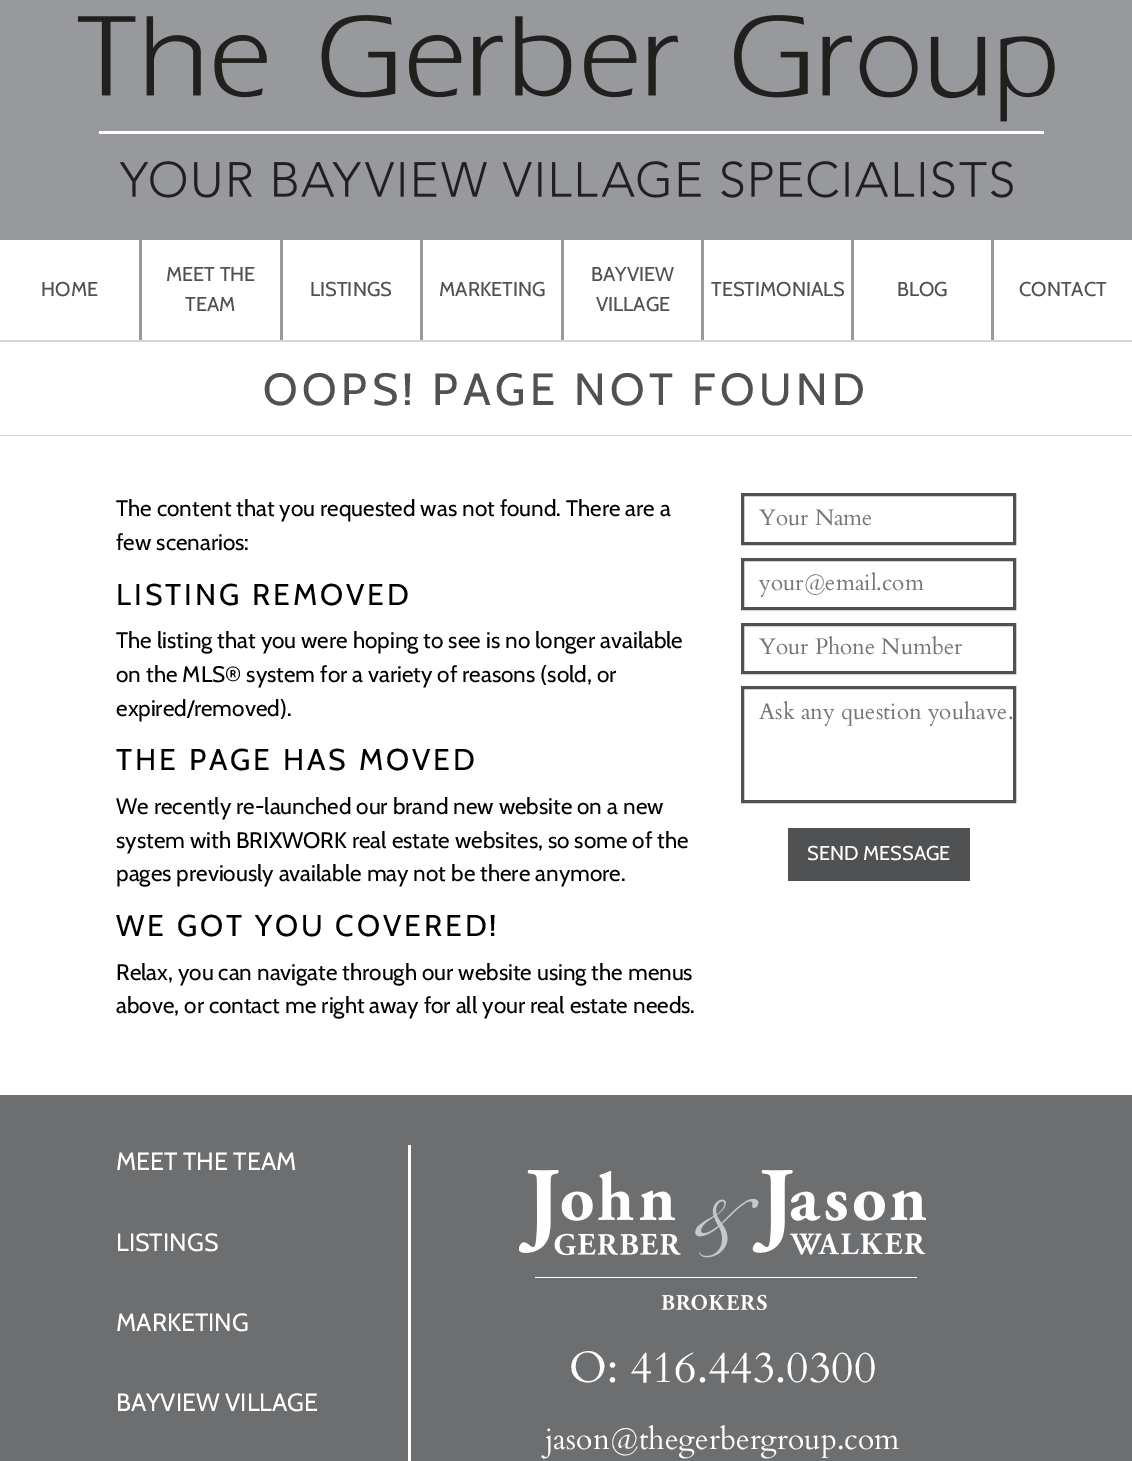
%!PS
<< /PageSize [1132 1461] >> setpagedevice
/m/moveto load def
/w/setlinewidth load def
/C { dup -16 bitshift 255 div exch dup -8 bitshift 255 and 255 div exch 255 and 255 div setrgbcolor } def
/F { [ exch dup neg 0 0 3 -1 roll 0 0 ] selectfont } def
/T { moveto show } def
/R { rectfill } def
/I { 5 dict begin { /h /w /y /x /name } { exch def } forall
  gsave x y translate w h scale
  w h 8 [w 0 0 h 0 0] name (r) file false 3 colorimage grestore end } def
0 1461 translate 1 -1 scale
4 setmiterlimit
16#FFFFFF C
0 0 1132 1461 R
(1.rgb) 0 0 1132 240 I
/Cabin-Regular 20 F
16#505153 C
(HOME) 41 296 T
16#97999C C
139 240 3 100 R
16#505153 C
(MEET THE) 166 281 T
(TEAM) 185 311 T
16#97999C C
280 240 3 100 R
16#505153 C
(LISTINGS) 310 296 T
16#97999C C
420 240 3 100 R
16#505153 C
(MARKETING) 439 296 T
16#97999C C
561 240 3 100 R
16#505153 C
(BAYVIEW) 591 281 T
(VILLAGE) 596 311 T
16#97999C C
701 240 3 100 R
16#505153 C
(TESTIMONIALS) 711 296 T
16#97999C C
851 240 3 100 R
16#505153 C
(BLOG) 897 296 T
16#97999C C
991 240 3 100 R
16#505153 C
(CONTACT) 1019 296 T
16#D4D5D6 C
0 340 1132 2 R
/Cabin-Regular 45 F
16#505153 C
263 405 m 4.5 0 (OOPS! PAGE NOT FOUND) ashow
16#D4D5D6 C
0 435 1132 1 R
/Cabin-Regular 22.5 F
16#000000 C
(The content that you requested was not found. There are a) 116 516 T
(few scenarios:) 116 550 T
/Cabin-Regular 30 F
116 605 m 3 0 (LISTING REMOVED) ashow
/Cabin-Regular 22.5 F
(The listing that you were hoping to see is no longer available) 116 648 T
(on the MLS® system for a variety of reasons \(sold, or) 116 682 T
(expired/removed\).) 116 716 T
/Cabin-Regular 30 F
116 770 m 3 0 (THE PAGE HAS MOVED) ashow
/Cabin-Regular 22.5 F
(We recently re-launched our brand new website on a new) 116 814 T
(system with BRIXWORK real estate websites, so some of the) 116 848 T
(pages previously available may not be there anymore.) 116 881 T
/Cabin-Regular 30 F
116 936 m 3 0 (WE GOT YOU COVERED!) ashow
/Cabin-Regular 22.5 F
(Relax, you can navigate through our website using the menus) 116 980 T
(above, or contact me right away for all your real estate needs.) 116 1013 T
16#505153 C
3 w
742.5 494.5 272 49 rectstroke
/Cardo-Regular 22.5 F
16#757575 C
(Your Name) 759 525 T
16#505153 C
742.5 559.5 272 49 rectstroke
16#757575 C
(your@email.com) 759 590 T
16#505153 C
742.5 624.5 272 48 rectstroke
16#757575 C
(Your Phone Number) 759 654 T
16#505153 C
742.5 687.5 272 114 rectstroke
16#757575 C
(Ask any question youhave.) 759 719 T
16#505153 C
788 828 182 53 R
/Cabin-Regular 20 F
16#FFFFFF C
(SEND MESSAGE) 807 860 T
16#6D6E70 C
0 1095 1132 366 R
16#FFFFFF C
408 1145 3 316 R
/Cabin-Regular 25 F
(MEET THE TEAM) 116 1170 T
(LISTINGS) 116 1251 T
(MARKETING) 116 1331 T
(BAYVIEW VILLAGE) 116 1411 T
(2.rgb) 519 1170 407 140 I
/Cardo-Regular 43.75 F
(O: 416.443.0300) 569 1382 T
/Cardo-Regular 30 F
(jason@thegerbergroup.com) 545 1449 T
showpage
